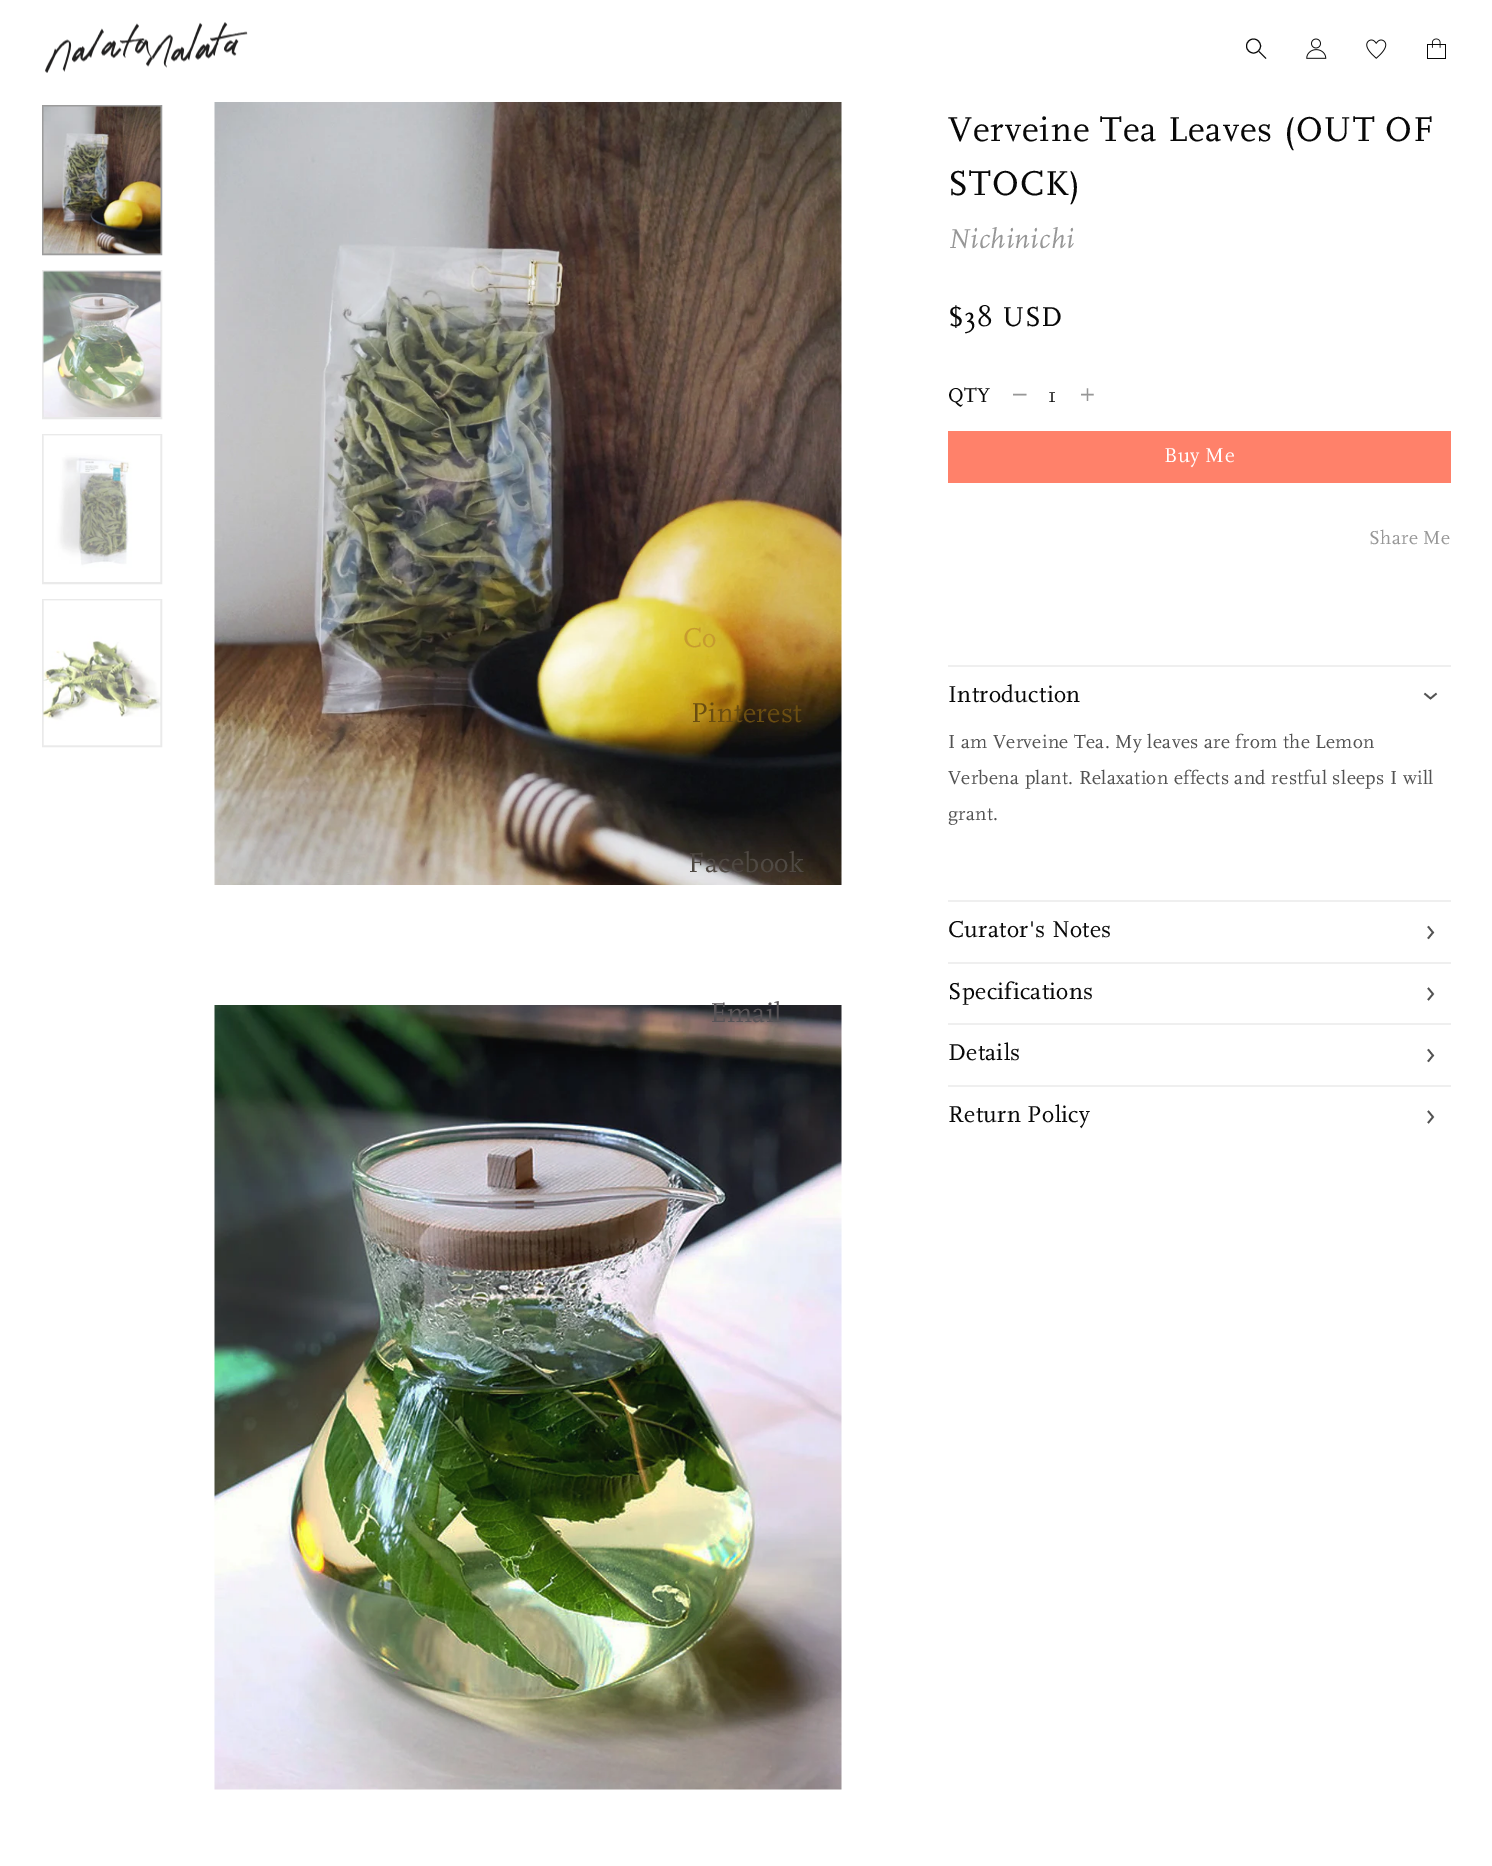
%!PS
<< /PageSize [1492 1866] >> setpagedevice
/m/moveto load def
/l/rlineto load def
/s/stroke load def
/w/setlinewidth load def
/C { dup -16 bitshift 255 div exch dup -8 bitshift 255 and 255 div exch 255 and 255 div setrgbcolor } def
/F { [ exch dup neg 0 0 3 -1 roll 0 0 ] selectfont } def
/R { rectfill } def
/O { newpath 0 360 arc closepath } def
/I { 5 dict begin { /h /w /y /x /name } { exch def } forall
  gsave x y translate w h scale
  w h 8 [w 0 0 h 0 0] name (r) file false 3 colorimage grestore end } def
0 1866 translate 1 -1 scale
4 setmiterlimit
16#FFFFFF C
0 0 1492 1866 R
(1.rgb) 45 22 203 51 I
16#080808 C
1253.5 46 7 O s
1259 51.5 m 7 7 l s
(2.rgb) 1306 38 21 21 I
(3.rgb) 1366 39 21 20 I
(4.rgb) 1427 38 19 21 I
(9.rgb) 214 102 628 783 I
/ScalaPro-Regular 28.5 F
16#C79B2F C
683 647 m .38 0 (Co) ashow
16#6A4D11 C
691 722 m .38 0 (Pinterest) ashow
16#4F4943 C
688 872 m .38 0 (Facebook) ashow
(10.rgb) 214 1005 628 785 I
16#585457 C
710 1022 m .38 0 (Email) ashow
16#9B9B9B C
2 w
43 106 118 148 rectstroke
(5.rgb) 43 106 118 148 I
16#EAEAEA C
43 271 118 147 rectstroke
(6.rgb) 43 271 118 146 I
43 435 118 148 rectstroke
(7.rgb) 43 435 118 147 I
43 600 118 146 rectstroke
(8.rgb) 43 600 118 146 I
/ScalaPro-Regular 36 F
16#080808 C
948 141 m 1 0 (Verveine Tea Leaves \(OUT OF) ashow
948 195 m 1 0 (STOCK\)) ashow
/ScalaPro-Italic 28.5 F
16#979797 C
948 248 m .75 0 (Nichinichi) ashow
/ScalaPro-Regular 28.5 F
16#080808 C
948 326 m .75 0 ($38 USD) ashow
/ScalaPro-Regular 21 F
948 402 m .38 0 (QTY) ashow
/ScalaPro-Regular 27 F
16#979797 C
1013 401 m .38 0 (–) ashow
/ScalaPro-Regular 21 F
16#080808 C
1048 402 m .38 0 (1) ashow
/ScalaPro-Regular 27 F
16#979797 C
1080 401 m .38 0 (+) ashow
16#FF816A C
948 431 503 52 R
/ScalaPro-Regular 21 F
16#FFFFFF C
1164 462 m .38 0 (Buy Me) ashow
/ScalaPro-Regular 19.5 F
16#979797 C
1369 544 m .38 0 (Share Me) ashow
16#EFEFEF C
948 665 503 2 R
/ScalaPro-Regular 24 F
16#080808 C
948 702 m .38 0 (Introduction) ashow
16#525252 C
1.7 w
1436.5 693.5 m -6 5 l -6 -5 l s
/ScalaPro-Regular 19.5 F
948 748 m .38 0 (I am Verveine Tea. My leaves are from the Lemon) ashow
948 784 m .38 0 (Verbena plant. Relaxation effects and restful sleeps I will) ashow
948 820 m .38 0 (grant.) ashow
16#EFEFEF C
948 900 503 2 R
/ScalaPro-Regular 24 F
16#080808 C
948 937 m .38 0 (Curator's Notes) ashow
16#525252 C
1428 926.5 m 5 6 l -5 6 l s
16#EFEFEF C
948 962 503 2 R
16#080808 C
948 999 m .38 0 (Specifications) ashow
16#525252 C
1428 988 m 5 6 l -5 6 l s
16#EFEFEF C
948 1023 503 2 R
16#080808 C
948 1060 m .38 0 (Details) ashow
16#525252 C
1428 1049.5 m 5 6 l -5 6 l s
16#EFEFEF C
948 1085 503 2 R
16#080808 C
948 1122 m .38 0 (Return Policy) ashow
16#525252 C
1428 1111 m 5 6 l -5 6 l s
showpage
